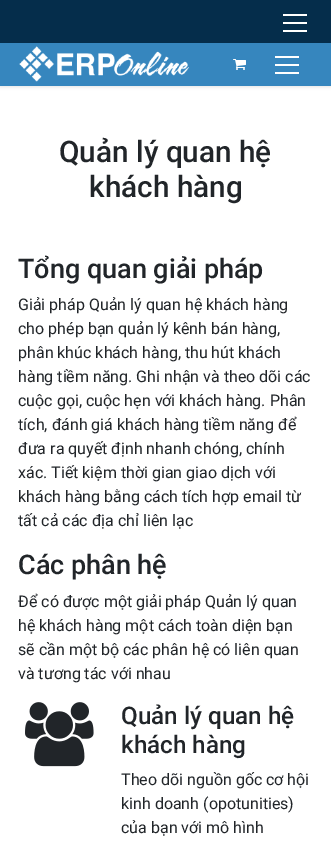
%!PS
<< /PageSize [331 845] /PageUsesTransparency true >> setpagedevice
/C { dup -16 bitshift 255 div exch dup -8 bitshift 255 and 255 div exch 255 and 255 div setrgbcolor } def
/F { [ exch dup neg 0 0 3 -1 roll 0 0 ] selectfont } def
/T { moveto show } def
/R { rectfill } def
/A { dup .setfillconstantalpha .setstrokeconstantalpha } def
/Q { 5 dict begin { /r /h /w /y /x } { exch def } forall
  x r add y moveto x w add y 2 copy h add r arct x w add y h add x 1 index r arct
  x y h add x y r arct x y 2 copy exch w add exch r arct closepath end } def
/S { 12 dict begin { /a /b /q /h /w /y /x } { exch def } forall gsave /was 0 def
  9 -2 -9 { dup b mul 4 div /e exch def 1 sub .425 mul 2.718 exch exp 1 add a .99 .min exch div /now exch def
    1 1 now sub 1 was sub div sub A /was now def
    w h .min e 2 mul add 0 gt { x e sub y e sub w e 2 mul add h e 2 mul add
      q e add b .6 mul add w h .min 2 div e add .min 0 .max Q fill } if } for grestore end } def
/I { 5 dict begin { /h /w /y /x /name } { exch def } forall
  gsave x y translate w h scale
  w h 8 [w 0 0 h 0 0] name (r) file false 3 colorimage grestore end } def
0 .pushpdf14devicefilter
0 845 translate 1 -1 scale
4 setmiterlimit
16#FFFFFF C
0 0 331 845 R
16#000000 C
0 44 331 43 0 1.5 .1 S
16#052D4B C
0 0 331 43 R
16#FFFFFF C
283 30 24 2 R
283 14 24 2 R
283 22 24 2 R
16#3686BE C
0 43 331 43 R
(1.rgb) 19 46 170 36 I
(2.rgb) 233 59 13 11 I
16#FFFFFF C
275 72 24 2 R
275 56 24 2 R
275 64 24 2 R
/Roboto-Medium 29.75 F
16#212529 C
(Quản lý quan hệ) 59 162 T
(khách hàng) 89 197 T
/Roboto-Medium 27 F
(Tổng quan giải pháp) 18 278 T
/Roboto-Regular 16 F
(Giải pháp Quản lý quan hệ khách hàng) 18 310 T
(cho phép bạn quản lý kênh bán hàng,) 18 334 T
(phân khúc khách hàng, thu hút khách) 18 358 T
(hàng tiềm năng. Ghi nhận và theo dõi các) 18 382 T
(cuộc gọi, cuộc hẹn với khách hàng. Phân) 18 406 T
(tích, đánh giá khách hàng tiềm năng để) 18 430 T
(đưa ra quyết định nhanh chóng, chính) 18 454 T
(xác. Tiết kiệm thời gian giao dịch với) 18 478 T
(khách hàng bằng cách tích hợp email từ) 18 502 T
(tất cả các địa chỉ liên lạc) 18 526 T
/Roboto-Medium 27 F
(Các phân hệ) 18 574 T
/Roboto-Regular 16 F
(Để có được một giải pháp Quản lý quan) 18 607 T
(hệ khách hàng một cách toàn diện bạn) 18 631 T
(sẽ cần một bộ các phân hệ có liên quan) 18 655 T
(và tương tác với nhau) 18 679 T
(3.rgb) 25 702 69 65 I
/Roboto-Medium 24.25 F
(Quản lý quan hệ) 121 724 T
(khách hàng) 121 753 T
/Roboto-Regular 16 F
(Theo dõi nguồn gốc cơ hội) 121 785 T
(kinh doanh \(opotunities\)) 121 809 T
(của bạn với mô hình) 121 833 T
.poppdf14devicefilter showpage
